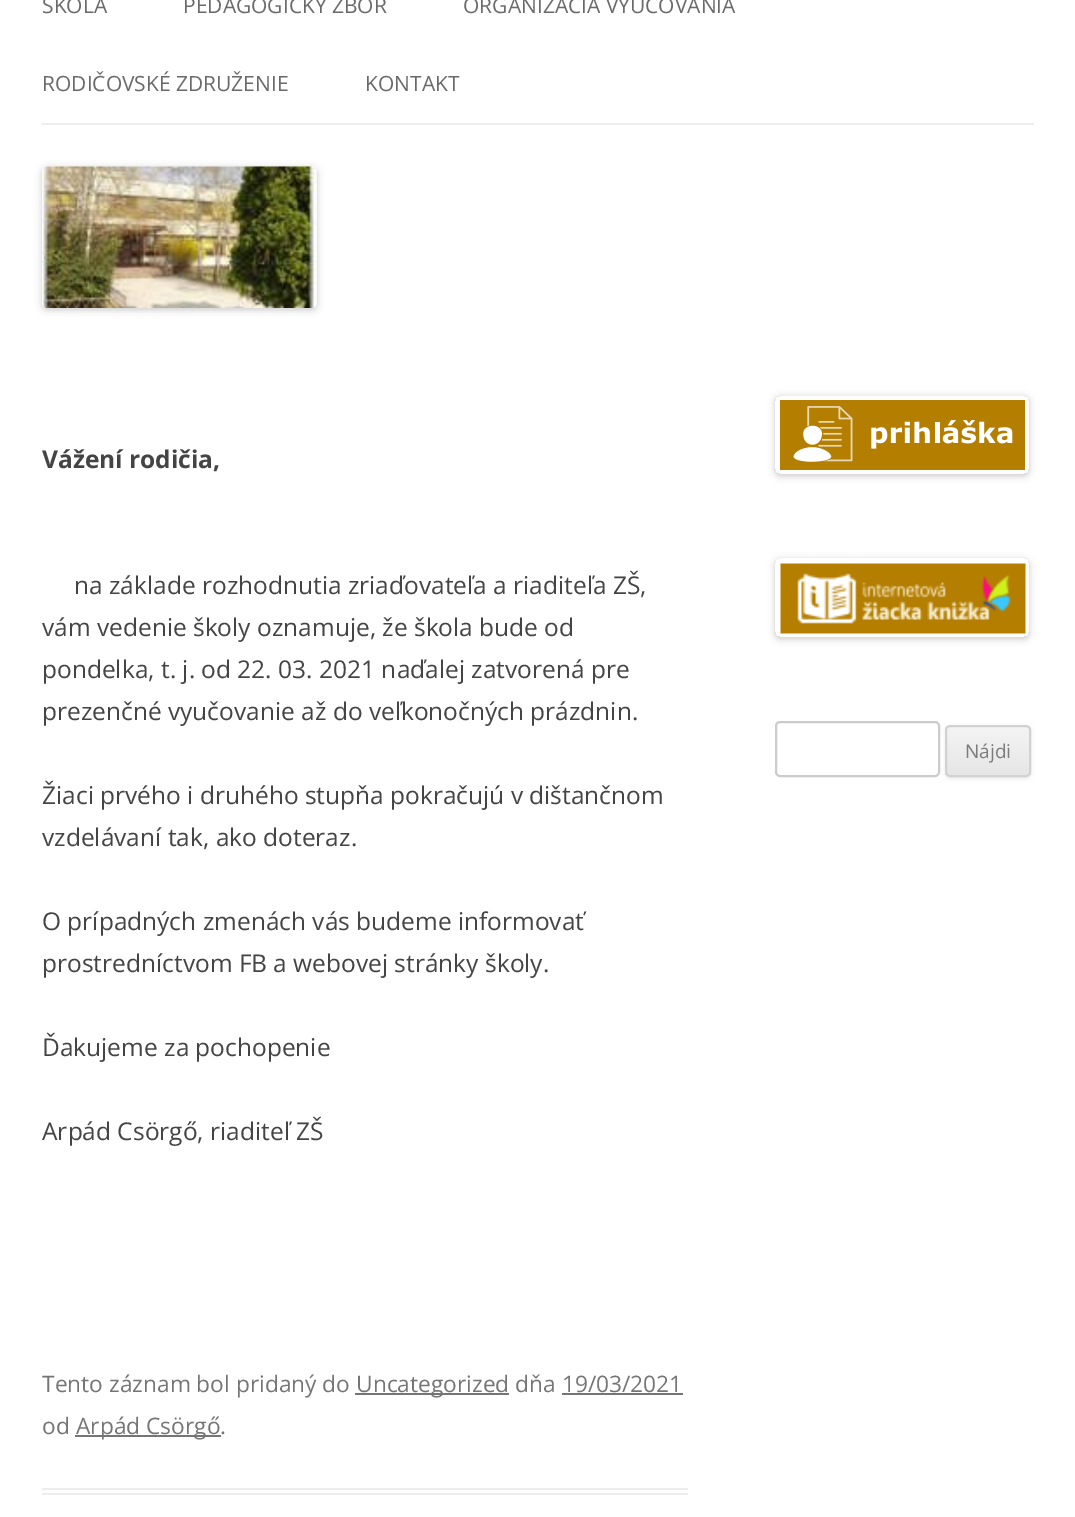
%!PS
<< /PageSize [1075 1517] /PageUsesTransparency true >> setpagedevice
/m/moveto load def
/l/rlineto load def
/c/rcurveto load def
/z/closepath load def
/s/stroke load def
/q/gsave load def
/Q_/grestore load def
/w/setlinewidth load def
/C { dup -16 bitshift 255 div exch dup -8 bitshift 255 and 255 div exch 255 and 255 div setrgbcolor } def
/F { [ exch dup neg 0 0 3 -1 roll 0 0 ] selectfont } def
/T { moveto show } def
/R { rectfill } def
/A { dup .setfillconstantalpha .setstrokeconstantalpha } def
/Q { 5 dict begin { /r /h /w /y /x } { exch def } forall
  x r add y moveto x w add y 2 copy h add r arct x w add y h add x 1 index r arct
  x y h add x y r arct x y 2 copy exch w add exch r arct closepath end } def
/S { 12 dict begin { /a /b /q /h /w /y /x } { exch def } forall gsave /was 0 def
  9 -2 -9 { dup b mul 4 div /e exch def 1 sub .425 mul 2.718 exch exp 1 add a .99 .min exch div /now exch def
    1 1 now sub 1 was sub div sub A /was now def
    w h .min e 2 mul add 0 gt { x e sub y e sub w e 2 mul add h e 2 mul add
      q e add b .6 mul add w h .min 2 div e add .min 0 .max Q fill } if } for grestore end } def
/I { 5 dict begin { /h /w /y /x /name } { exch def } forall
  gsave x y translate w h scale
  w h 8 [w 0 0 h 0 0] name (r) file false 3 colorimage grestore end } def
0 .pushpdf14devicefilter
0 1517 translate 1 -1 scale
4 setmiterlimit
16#FFFFFF C
0 0 1075 1517 R
16#EDEDED C
42 123 992 2 R
/OpenSans-Regular 21 F
16#6A6A6A C
(ŠKOLA) 42 13 T
(PEDAGOGICKÝ ZBOR) 183 13 T
(ORGANIZÁCIA VYUČOVANIA) 463 13 T
(RODIČOVSKÉ ZDRUŽENIE) 42 91 T
(KONTAKT) 365 91 T
16#000000 C
42 168 275 142 5 3.5 .2 S
(1.rgb) 42 166 275 142 I
16#EDEDED C
42 1488 646 2 R
42 1493 646 2 R
/OpenSans-Bold 24.5 F
16#444444 C
(Vážení rodičia,) 42 468 T
/OpenSans-Regular 24.5 F
(na základe rozhodnutia zriaďovateľa a riaditeľa ZŠ,) 74 594 T
(vám vedenie školy oznamuje, že škola bude od) 42 636 T
(pondelka, t. j. od 22. 03. 2021 naďalej zatvorená pre) 42 678 T
(prezenčné vyučovanie až do veľkonočných prázdnin.) 42 720 T
(Žiaci prvého i druhého stupňa pokračujú v dištančnom) 42 804 T
(vzdelávaní tak, ako doteraz.) 42 846 T
(O prípadných zmenách vás budeme informovať) 42 930 T
(prostredníctvom FB a webovej stránky školy.) 42 972 T
(Ďakujeme za pochopenie) 42 1056 T
(Arpád Csörgő, riaditeľ ZŠ) 42 1140 T
/OpenSans-Regular 22.75 F
16#757575 C
(Tento záznam bol pridaný do) 42 1392 T
355 1393 154 2 R
(Uncategorized dňa 19/03/2021) 356 1392 T
562 1393 121 2 R
(od) 42 1434 T
75 1435 146 2 R
(Arpád Csörgő.) 76 1434 T
q
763 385 m 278 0 l 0 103 l -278 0 l z 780 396 m 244 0 l 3 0 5 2 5 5 c 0 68 l 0 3 -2 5 -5 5 c -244 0 l -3 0 -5 -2 -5 -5 c 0 -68 l 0 -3 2 -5 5 -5 c z eoclip newpath
16#000000 C
775 397 254 79 5 3.5 .2 S
Q_
(2.rgb) 780 400 245 70 I
q
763 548 m 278 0 l 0 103 l -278 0 l z 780 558 m 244 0 l 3 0 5 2 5 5 c 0 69 l 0 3 -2 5 -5 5 c -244 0 l -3 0 -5 -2 -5 -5 c 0 -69 l 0 -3 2 -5 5 -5 c z eoclip newpath
16#000000 C
775 560 254 79 5 3.5 .2 S
Q_
(3.rgb) 780 563 246 71 I
16#CCCCCC C
2 w
776 722 163 54 4 Q s
16#404040 C
945 726 86 53 5 2 .1 S
q
945 725 86 52 5 Q clip newpath
q 945 726 m 86 0 l 0 49 l -86 0 l z clip newpath
<< /ShadingType 2 /ColorSpace /DeviceRGB /Coords [988 726 988 775] /Extend [true true] /Function << /FunctionType 2 /Domain [0 1] /C0 [.957 .957 .957] /C1 [.902 .902 .902] /N 1 >> >> shfill Q_
Q_
16#D2D2D2 C
946 726 84 50 4 Q s
/OpenSans-Regular 19 F
16#7C7C7C C
(Nájdi) 965 758 T
.poppdf14devicefilter showpage
